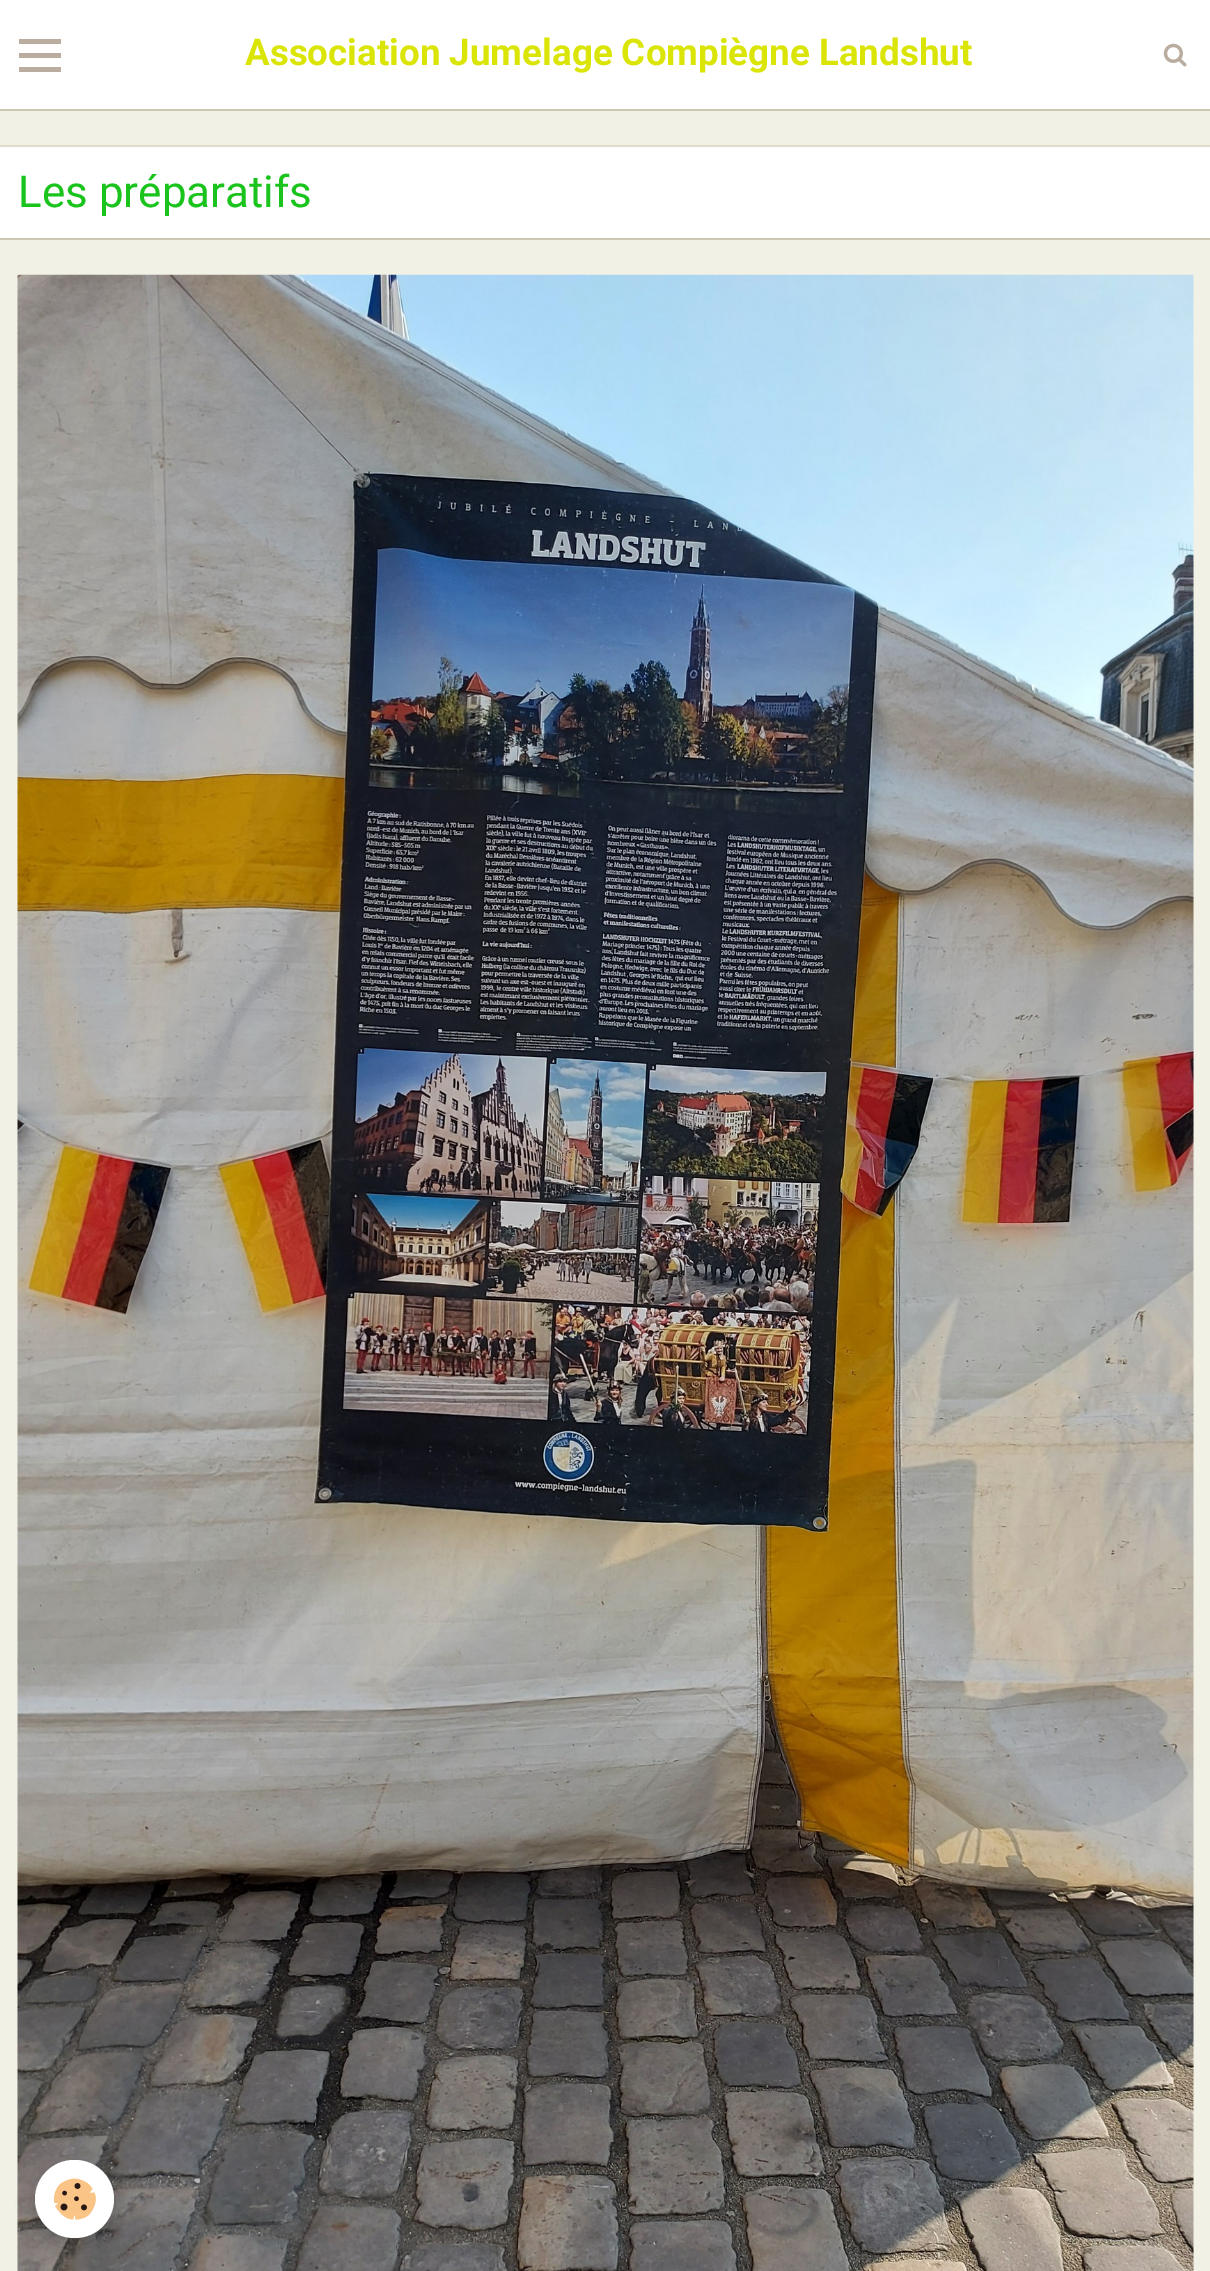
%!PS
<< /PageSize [1210 2271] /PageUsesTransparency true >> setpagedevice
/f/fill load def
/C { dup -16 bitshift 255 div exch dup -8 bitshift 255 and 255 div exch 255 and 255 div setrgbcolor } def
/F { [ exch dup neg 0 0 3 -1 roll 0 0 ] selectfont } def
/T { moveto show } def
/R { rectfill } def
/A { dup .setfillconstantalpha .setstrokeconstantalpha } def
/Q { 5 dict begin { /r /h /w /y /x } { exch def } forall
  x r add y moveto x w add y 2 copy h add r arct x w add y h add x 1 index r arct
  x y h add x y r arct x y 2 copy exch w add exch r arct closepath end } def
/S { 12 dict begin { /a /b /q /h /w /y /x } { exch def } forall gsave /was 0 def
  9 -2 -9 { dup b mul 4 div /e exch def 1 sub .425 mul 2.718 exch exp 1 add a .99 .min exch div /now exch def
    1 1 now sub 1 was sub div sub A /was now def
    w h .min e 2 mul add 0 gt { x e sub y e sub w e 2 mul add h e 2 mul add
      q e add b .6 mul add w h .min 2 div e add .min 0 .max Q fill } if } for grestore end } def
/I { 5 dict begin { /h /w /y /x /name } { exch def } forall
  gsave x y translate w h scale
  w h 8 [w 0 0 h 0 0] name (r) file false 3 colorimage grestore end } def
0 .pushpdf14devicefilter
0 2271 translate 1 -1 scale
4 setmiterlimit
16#F1F1E6 C
0 0 1210 2271 R
16#FFFFFF C
0 0 1210 109 R
16#CDC8B1 C
0 109 1210 2 R
16#BAADA0 C
19 53 42 5 R
19 39 42 5 R
19 67 42 5 R
/Roboto-Bold 36.75 F
16#DAE506 C
(Association Jumelage Compiègne Landshut) 245 65 T
(1.rgb) 1163 43 24 24 I
16#DFDDCC C
0 145 1210 2 R
16#FFFFFF C
0 147 1210 91 R
16#CDC8B1 C
0 238 1210 2 R
/Roboto-Regular 44 F
16#1BC31D C
(Les préparatifs) 18 207 T
(2.rgb) 17 274 1177 1997 I
16#000000 C
35 2165 79 79 39.5 9 .24 S
16#FFFFFF C
35 2160 79 78 39 Q f
(3.rgb) 53 2178 43 42 I
.poppdf14devicefilter showpage
